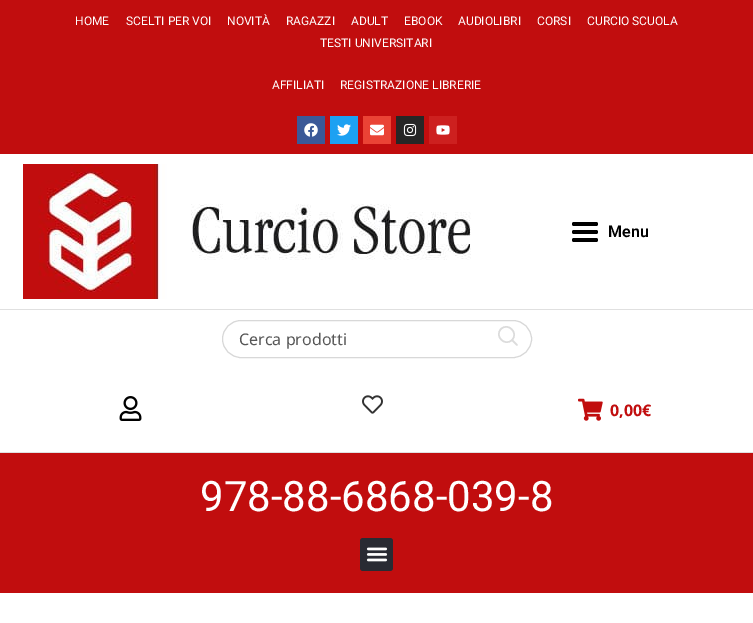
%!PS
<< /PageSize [753 623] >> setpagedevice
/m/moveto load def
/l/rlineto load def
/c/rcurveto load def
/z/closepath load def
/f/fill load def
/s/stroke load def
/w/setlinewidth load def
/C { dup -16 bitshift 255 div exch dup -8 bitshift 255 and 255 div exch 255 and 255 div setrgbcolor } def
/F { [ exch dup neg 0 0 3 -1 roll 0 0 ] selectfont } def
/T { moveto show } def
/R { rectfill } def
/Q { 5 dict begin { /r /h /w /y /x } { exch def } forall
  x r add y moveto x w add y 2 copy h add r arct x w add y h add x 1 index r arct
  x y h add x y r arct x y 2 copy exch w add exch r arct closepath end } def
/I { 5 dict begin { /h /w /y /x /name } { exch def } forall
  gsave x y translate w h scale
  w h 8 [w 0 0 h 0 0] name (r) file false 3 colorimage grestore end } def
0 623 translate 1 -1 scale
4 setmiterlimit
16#FFFFFF C
0 0 753 623 R
16#C10D0E C
0 0 753 154 R
/Roboto-Regular 12 F
16#FFFFFF C
(HOME) 75 25 T
(SCELTI PER VOI) 126 25 T
(NOVITÀ) 227 25 T
(RAGAZZI) 286 25 T
(ADULT) 351 25 T
(EBOOK) 404 25 T
(AUDIOLIBRI) 458 25 T
(CORSI) 537 25 T
(CURCIO SCUOLA) 587 25 T
(TESTI UNIVERSITARI) 320 47 T
(AFFILIATI) 272 89 T
(REGISTRAZIONE LIBRERIE) 340 89 T
16#3B5998 C
297 116 28 28 R
(1.rgb) 304 123 14 14 I
16#1DA1F2 C
330 116 28 28 R
(2.rgb) 337 124 14 12 I
16#EA4335 C
363 116 28 28 R
(3.rgb) 370 124 14 12 I
16#262626 C
396 116 28 28 R
(4.rgb) 403 123 14 14 I
16#CD201F C
429 116 28 28 R
(5.rgb) 436 125 14 10 I
16#E0E0E0 C
0 309 753 1 R
(6.rgb) 23 164 448 135 I
16#000000 C
572 230 26 4 2 Q f
572 222 26 4 2 Q f
572 238 26 4 2 Q f
/Roboto-SemiBold 16 F
(Menu) 608 237 T
16#E0E0E0 C
0 452 753 1 R
16#D8D8D8 C
222.5 320.5 309 37 18.5 Q s
/NotoSans-Regular 16 F
16#575757 C
(Cerca prodotti) 239 345 T
16#DCDCDC C
1.5 w
1 setlinecap
1 setlinejoin
517 345 m -5 -5 l 512 340 m 7 -7 -4 -18 -11 -11 c -7 7 4 18 11 11 c z s
(7.rgb) 119 396 23 25 I
(8.rgb) 362 395 21 19 I
(9.rgb) 578 398 25 23 I
/NotoSans-Bold 16 F
16#C10D0E C
(0,00€) 610 416 T
0 453 753 140 R
/Roboto-Regular 42 F
16#FFFFFF C
(978-88-6868-039-8) 200 511 T
16#292B33 C
360 538 33 33 3 Q f
(10.rgb) 366 547 22 15 I
showpage
